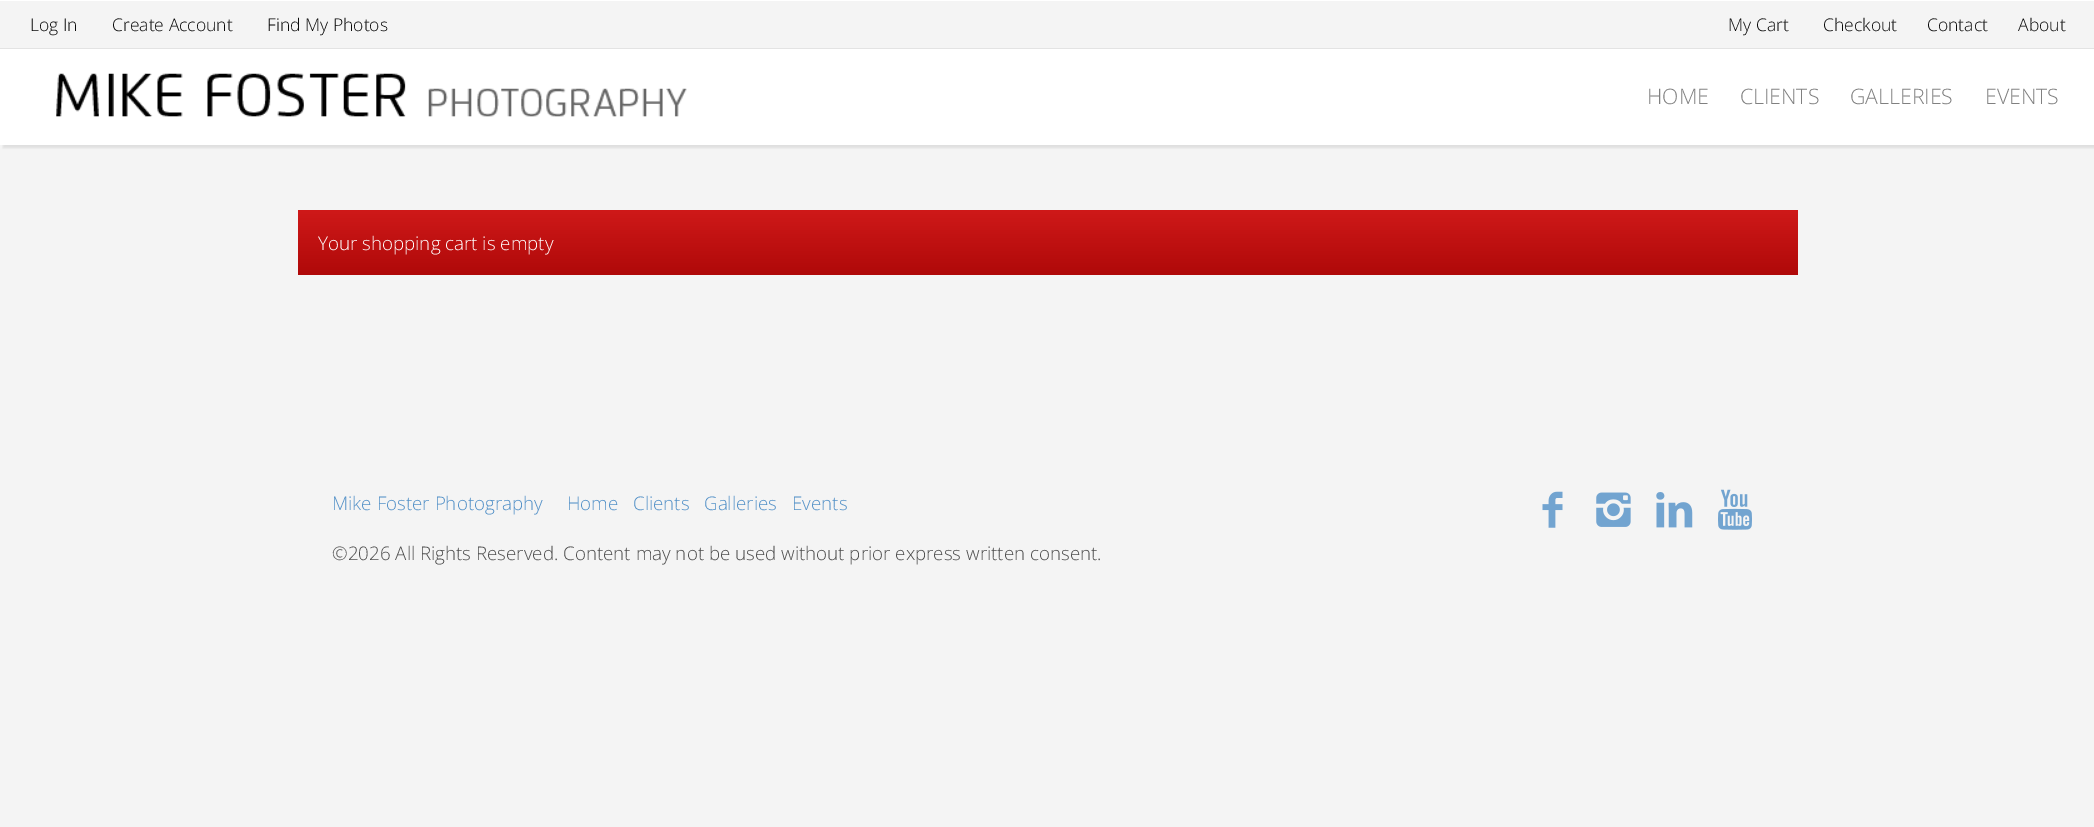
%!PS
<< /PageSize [2094 827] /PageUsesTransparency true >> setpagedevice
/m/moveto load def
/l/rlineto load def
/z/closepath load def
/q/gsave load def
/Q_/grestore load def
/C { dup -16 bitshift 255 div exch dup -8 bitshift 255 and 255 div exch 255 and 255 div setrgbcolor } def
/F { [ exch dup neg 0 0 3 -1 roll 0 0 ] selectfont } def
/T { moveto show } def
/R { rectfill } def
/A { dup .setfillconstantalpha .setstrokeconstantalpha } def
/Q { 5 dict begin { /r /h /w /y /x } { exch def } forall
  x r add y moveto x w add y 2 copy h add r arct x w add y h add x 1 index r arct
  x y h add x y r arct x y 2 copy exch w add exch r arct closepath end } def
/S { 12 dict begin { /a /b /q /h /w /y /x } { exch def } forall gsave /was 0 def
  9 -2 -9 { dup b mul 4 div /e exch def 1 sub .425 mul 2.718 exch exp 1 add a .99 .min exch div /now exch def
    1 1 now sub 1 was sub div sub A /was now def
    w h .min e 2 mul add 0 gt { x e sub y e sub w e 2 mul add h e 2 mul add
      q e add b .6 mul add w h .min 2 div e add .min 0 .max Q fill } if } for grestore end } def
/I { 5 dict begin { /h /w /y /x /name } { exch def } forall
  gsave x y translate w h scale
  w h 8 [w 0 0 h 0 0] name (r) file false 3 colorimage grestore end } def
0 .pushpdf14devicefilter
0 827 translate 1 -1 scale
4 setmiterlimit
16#F4F4F4 C
0 0 2094 827 R
16#FFFFFF C
0 0 2094 1 R
16#858585 C
3 51 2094 97 0 1 .2 S
16#E3E3E3 C
0 48 2094 1 R
/OpenSans-Light 17.5 F
16#0A0A0A C
(Log In) 30 31 T
(Create Account) 112 31 T
(Find My Photos) 267 31 T
(My Cart) 1728 31 T
(Checkout) 1823 31 T
(Contact) 1927 31 T
(About) 2018 31 T
16#FFFFFF C
0 49 2094 96 R
(1.rgb) 56 73 631 44 I
/OpenSans-Light 21.25 F
16#808080 C
(HOME) 1647 104 T
(CLIENTS) 1740 104 T
(GALLERIES) 1850 104 T
(EVENTS) 1985 104 T
q 298 210 m 1500 0 l 0 65 l -1500 0 l z clip newpath
<< /ShadingType 2 /ColorSpace /DeviceRGB /Coords [1048 210 1048 275] /Extend [true true] /Function << /FunctionType 2 /Domain [0 1] /C0 [.812 .098 .098] /C1 [.686 .035 .035] /N 1 >> >> shfill Q_
/OpenSans-Light 18.75 F
16#FFFFFF C
(Your shopping cart is empty) 318 250 T
16#5290C7 C
(Mike Foster Photography) 332 510 T
(Home) 567 510 T
(Clients) 633 510 T
(Galleries) 704 510 T
(Events) 792 510 T
16#4D4D4D C
(©2026 All Rights Reserved. Content may not be used without prior express written consent.) 332 560 T
(2.rgb) 1542 491 21 37 I
(3.rgb) 1596 492 35 35 I
(4.rgb) 1656 492 37 36 I
(5.rgb) 1718 489 34 41 I
.poppdf14devicefilter showpage
